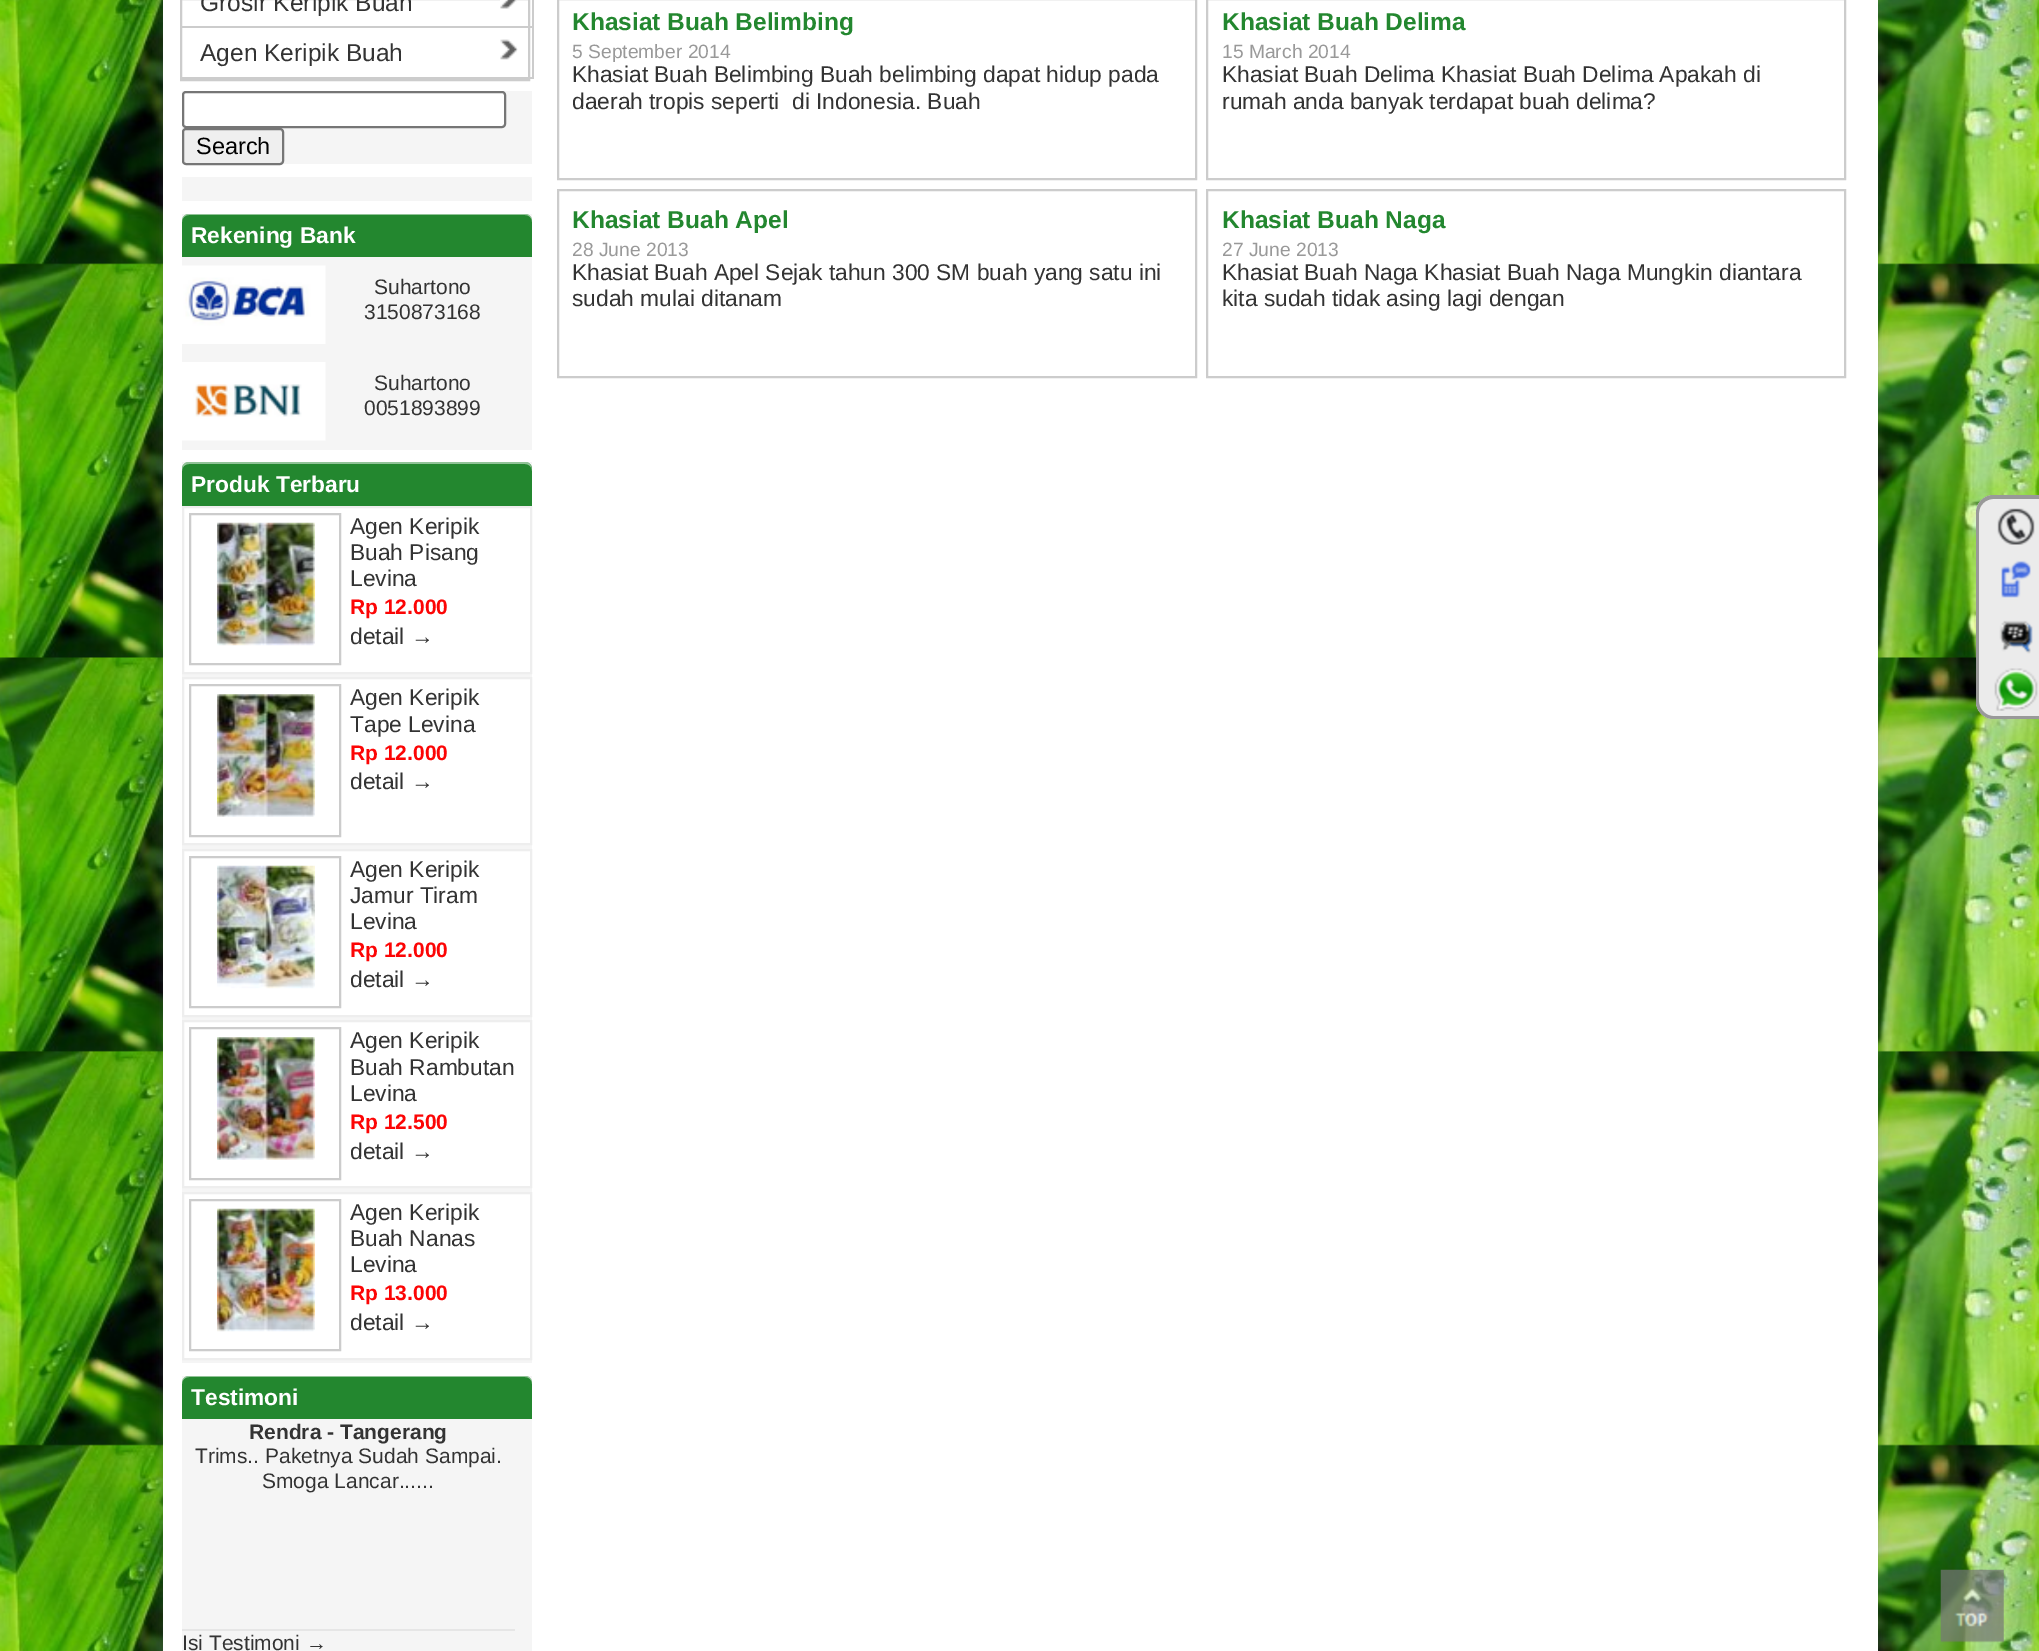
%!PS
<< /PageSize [2039 1651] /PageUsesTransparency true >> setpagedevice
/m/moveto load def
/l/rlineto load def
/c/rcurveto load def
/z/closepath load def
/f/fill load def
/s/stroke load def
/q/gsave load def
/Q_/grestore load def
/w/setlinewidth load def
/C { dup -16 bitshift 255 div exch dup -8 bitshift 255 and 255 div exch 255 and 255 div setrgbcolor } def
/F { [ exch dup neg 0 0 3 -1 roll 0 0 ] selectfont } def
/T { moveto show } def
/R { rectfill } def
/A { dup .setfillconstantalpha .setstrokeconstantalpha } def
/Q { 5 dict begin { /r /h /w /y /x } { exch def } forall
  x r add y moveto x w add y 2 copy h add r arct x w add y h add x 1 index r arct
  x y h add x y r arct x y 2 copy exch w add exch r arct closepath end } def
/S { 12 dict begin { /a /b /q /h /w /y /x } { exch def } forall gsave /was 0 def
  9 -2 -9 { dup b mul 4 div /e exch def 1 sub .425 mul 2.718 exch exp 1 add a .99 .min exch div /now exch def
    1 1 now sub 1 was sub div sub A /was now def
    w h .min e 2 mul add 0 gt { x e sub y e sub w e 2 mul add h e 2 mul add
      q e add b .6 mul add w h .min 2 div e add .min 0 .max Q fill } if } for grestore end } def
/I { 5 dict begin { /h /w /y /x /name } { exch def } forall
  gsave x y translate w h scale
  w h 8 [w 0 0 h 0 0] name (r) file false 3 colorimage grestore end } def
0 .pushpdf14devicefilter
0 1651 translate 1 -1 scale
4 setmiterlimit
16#FFFFFF C
0 0 2039 1651 R
(1.rgb) 0 0 2039 1651 I
16#646464 C
163 -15 1715 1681 0 5 .3 S
16#FFFFFF C
163 0 1715 1651 R
16#CCCCCC C
2 w
181 -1 348 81 rectstroke
(2.rgb) 500 0 17 9 I
532 0 2 79 R
182 26 352 2 R
/LiberationSans-Regular 24.5 F
16#333333 C
(Grosir Keripik Buah) 200 11 T
(3.rgb) 500 39 18 21 I
16#CCCCCC C
182 77 352 2 R
16#333333 C
(Agen Keripik Buah) 200 61 T
16#F5F5F5 C
182 91 350 73 R
16#FFFFFF C
183 92 322 35 3 Q q f Q_
16#767676 C
s
16#EFEFEF C
183 129 100 35 3 Q q f Q_
16#767676 C
s
/LiberationSans-Regular 23.5 F
16#000000 C
(Search) 196 154 T
16#F5F5F5 C
182 177 350 24 R
182 214 350 236 R
16#23872F C
189 214 m 336 0 l 4 0 7 3 7 7 c 0 36 l -350 0 l 0 -36 l 0 -4 3 -7 7 -7 c z f
0.5 A
16#FFFFFF C
189 215 m 336 0 l 4 0 7 3 7 7 c 0 -1 l 0 -4 -3 -7 -7 -7 c -336 0 l -4 0 -7 3 -7 7 c 0 1 l 0 -4 3 -7 7 -7 c z f
/LiberationSans-Bold 22.75 F
1 A
(Rekening Bank) 191 243 T
(4.rgb) 182 265 144 79 I
/LiberationSans-Regular 21 F
16#333333 C
(Suhartono) 374 294 T
(3150873168) 364 319 T
(5.rgb) 182 362 144 79 I
(Suhartono) 374 390 T
(0051893899) 364 415 T
16#F5F5F5 C
182 462 350 901 R
16#23872F C
189 462 m 336 0 l 4 0 7 3 7 7 c 0 37 l -350 0 l 0 -37 l 0 -4 3 -7 7 -7 c z f
0.5 A
16#FFFFFF C
189 464 m 336 0 l 4 0 7 3 7 7 c 0 -4 -2 -9 -7 -9 c -337 0 l -5 1 -6 5 -6 9 c 0 -4 3 -7 7 -7 c z f
/LiberationSans-Bold 22.75 F
1 A
(Produk Terbaru) 191 492 T
183 507 m 348 0 l 0 166 l -348 0 l z q f Q_
16#EEEEEE C
s
16#CCCCCC C
190 514 150 150 rectstroke
(6.rgb) 217 522 98 124 I
/LiberationSans-Regular 22.75 F
16#333333 C
(Agen Keripik) 350 534 T
(Buah Pisang) 350 560 T
(Levina) 350 586 T
/LiberationSans-Bold 21 F
16#FC0505 C
(Rp 12.000) 350 614 T
/LiberationSans-Regular 22.75 F
16#333333 C
(detail →) 350 644 T
16#FFFFFF C
183 678 m 348 0 l 0 166 l -348 0 l z q f Q_
16#EEEEEE C
s
16#CCCCCC C
190 685 150 151 rectstroke
(7.rgb) 217 694 98 123 I
16#333333 C
(Agen Keripik) 350 705 T
(Tape Levina) 350 732 T
/LiberationSans-Bold 21 F
16#FC0505 C
(Rp 12.000) 350 760 T
/LiberationSans-Regular 22.75 F
16#333333 C
(detail →) 350 789 T
16#FFFFFF C
183 850 m 348 0 l 0 166 l -348 0 l z q f Q_
16#EEEEEE C
s
16#CCCCCC C
190 857 150 150 rectstroke
(8.rgb) 217 865 98 124 I
16#333333 C
(Agen Keripik) 350 877 T
(Jamur Tiram) 350 903 T
(Levina) 350 929 T
/LiberationSans-Bold 21 F
16#FC0505 C
(Rp 12.000) 350 957 T
/LiberationSans-Regular 22.75 F
16#333333 C
(detail →) 350 987 T
16#FFFFFF C
183 1021 m 348 0 l 0 166 l -348 0 l z q f Q_
16#EEEEEE C
s
16#CCCCCC C
190 1028 150 151 rectstroke
(9.rgb) 217 1037 98 123 I
16#333333 C
(Agen Keripik) 350 1048 T
(Buah Rambutan) 350 1075 T
(Levina) 350 1101 T
/LiberationSans-Bold 21 F
16#FC0505 C
(Rp 12.500) 350 1129 T
/LiberationSans-Regular 22.75 F
16#333333 C
(detail →) 350 1159 T
16#FFFFFF C
183 1193 m 348 0 l 0 166 l -348 0 l z q f Q_
16#EEEEEE C
s
16#CCCCCC C
190 1200 150 150 rectstroke
(10.rgb) 217 1208 98 124 I
16#333333 C
(Agen Keripik) 350 1220 T
(Buah Nanas) 350 1246 T
(Levina) 350 1272 T
/LiberationSans-Bold 21 F
16#FC0505 C
(Rp 13.000) 350 1300 T
/LiberationSans-Regular 22.75 F
16#333333 C
(detail →) 350 1330 T
16#F5F5F5 C
182 1376 350 275 R
16#23872F C
189 1376 m 336 0 l 4 0 7 3 7 7 c 0 36 l -350 0 l 0 -36 l 0 -4 3 -7 7 -7 c z f
0.5 A
16#FFFFFF C
189 1377 m 336 0 l 4 0 7 3 7 7 c 0 -1 l 0 -4 -3 -7 -7 -7 c -336 0 l -4 0 -7 3 -7 7 c 0 1 l 0 -4 3 -7 7 -7 c z f
/LiberationSans-Bold 22.75 F
1 A
(Testimoni) 191 1405 T
16#E6E6E6 C
182 1629 333 2 R
/LiberationSans-Bold 21 F
16#333333 C
(Rendra - Tangerang) 249 1439 T
/LiberationSans-Regular 21 F
(Trims.. Paketnya Sudah Sampai.) 195 1463 T
(Smoga Lancar......) 262 1488 T
(Isi Testimoni →) 182 1650 T
16#CCCCCC C
558 -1 638 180 rectstroke
/LiberationSans-Bold 24.5 F
16#23872F C
(Khasiat Buah Belimbing) 572 30 T
/LiberationSans-Regular 19.25 F
16#999999 C
(5 September 2014) 572 58 T
/LiberationSans-Regular 22.75 F
16#333333 C
(Khasiat Buah Belimbing Buah belimbing dapat hidup pada) 572 82 T
(daerah tropis seperti  di Indonesia. Buah) 572 109 T
16#CCCCCC C
1207 -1 638 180 rectstroke
/LiberationSans-Bold 24.5 F
16#23872F C
(Khasiat Buah Delima) 1222 30 T
/LiberationSans-Regular 19.25 F
16#999999 C
(15 March 2014) 1222 58 T
/LiberationSans-Regular 22.75 F
16#333333 C
(Khasiat Buah Delima Khasiat Buah Delima Apakah di) 1222 82 T
(rumah anda banyak terdapat buah delima?) 1222 109 T
16#CCCCCC C
558 190 638 187 rectstroke
/LiberationSans-Bold 24.5 F
16#23872F C
(Khasiat Buah Apel) 572 228 T
/LiberationSans-Regular 19.25 F
16#999999 C
(28 June 2013) 572 256 T
/LiberationSans-Regular 22.75 F
16#333333 C
(Khasiat Buah Apel Sejak tahun 300 SM buah yang satu ini) 572 280 T
(sudah mulai ditanam) 572 306 T
16#CCCCCC C
1207 190 638 187 rectstroke
/LiberationSans-Bold 24.5 F
16#23872F C
(Khasiat Buah Naga) 1222 228 T
/LiberationSans-Regular 19.25 F
16#999999 C
(27 June 2013) 1222 256 T
/LiberationSans-Regular 22.75 F
16#333333 C
(Khasiat Buah Naga Khasiat Buah Naga Mungkin diantara) 1222 280 T
(kita sudah tidak asing lagi dengan) 1222 306 T
(11.rgb) 1940 1569 64 74 I
16#EBEBEB C
1994 495 m 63 0 l 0 224 l -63 0 l -10 0 -18 -8 -18 -18 c 0 -188 l 0 -10 8 -18 18 -18 c z f
16#999999 C
1993 495 m 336 0 l 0 224 l -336 0 l -9 0 -17 -8 -17 -17 c 0 -189 l 0 -10 8 -18 17 -18 c z 1993 499 m 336 0 l 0 217 l -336 0 l -7 0 -14 -7 -14 -14 c 0 -189 l 0 -8 7 -14 14 -14 c z eofill
(12.rgb) 1997 508 38 37 I
(13.rgb) 2001 560 30 38 I
(14.rgb) 1999 620 34 34 I
(15.rgb) 1994 668 44 43 I
.poppdf14devicefilter showpage
